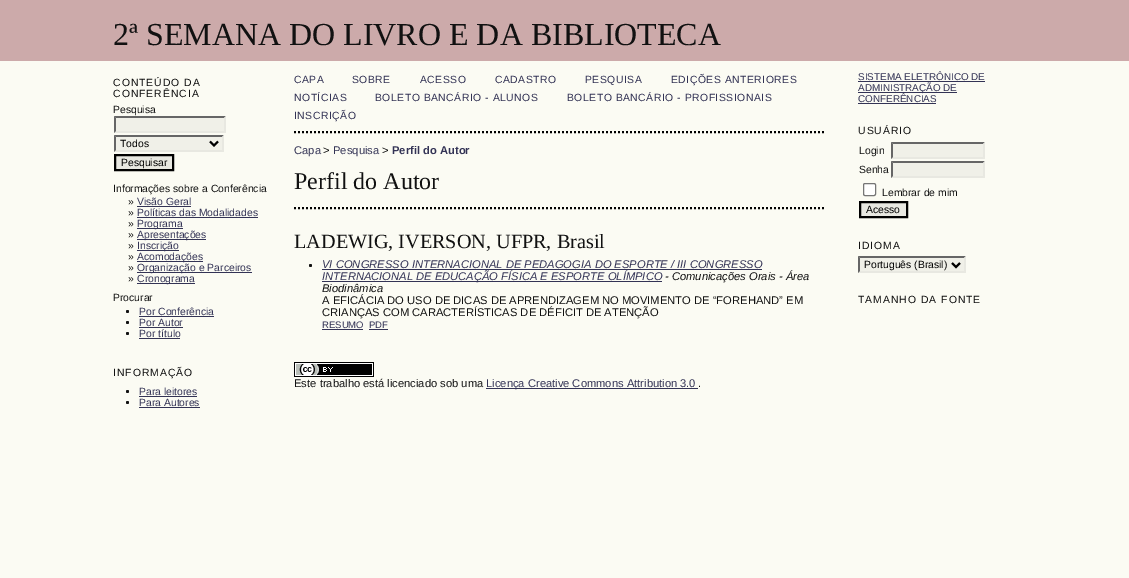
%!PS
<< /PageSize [1129 578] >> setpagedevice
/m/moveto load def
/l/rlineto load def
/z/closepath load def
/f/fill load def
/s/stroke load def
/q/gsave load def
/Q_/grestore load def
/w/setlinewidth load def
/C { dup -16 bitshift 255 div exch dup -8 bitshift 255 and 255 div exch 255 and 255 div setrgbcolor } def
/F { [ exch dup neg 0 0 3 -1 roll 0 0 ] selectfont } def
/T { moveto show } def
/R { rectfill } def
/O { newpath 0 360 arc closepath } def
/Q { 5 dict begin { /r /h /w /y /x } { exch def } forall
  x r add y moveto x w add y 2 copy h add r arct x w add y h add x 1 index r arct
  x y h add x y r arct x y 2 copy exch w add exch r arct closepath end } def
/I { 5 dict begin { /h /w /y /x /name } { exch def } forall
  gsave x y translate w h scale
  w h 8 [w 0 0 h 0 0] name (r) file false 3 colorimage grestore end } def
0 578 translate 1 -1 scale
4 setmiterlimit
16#FBFBF3 C
0 0 1129 578 R
16#CCAAAA C
0 0 1129 61 R
/LiberationSerif-Regular 32 F
16#111111 C
(2ª SEMANA DO LIVRO E DA BIBLIOTECA) 113 45 T
/LiberationSans-Regular 10.4 F
113 86 m 1 0 (CONTEÚDO DA) ashow
113 97 m 1 0 (CONFERÊNCIA) ashow
(Pesquisa) 113 113 T
16#F0F0E8 C
114 116 112 17 R
16#666666 C
114 116 m 112 0 l -2 2 l -108 0 l z f
16#E8E8E1 C
226 116 m 0 17 l -2 -2 l 0 -13 l z f
226 133 m -112 0 l 2 -2 l 108 0 l z f
16#666666 C
114 133 m 0 -17 l 2 2 l 0 13 l z f
16#F0F0E8 C
114 135 110 17 R
16#666666 C
114 135 m 110 0 l -2 2 l -106 0 l z f
16#E8E8E1 C
224 135 m 0 17 l -2 -2 l 0 -13 l z f
224 152 m -110 0 l 2 -2 l 106 0 l z f
16#666666 C
114 152 m 0 -17 l 2 2 l 0 13 l z f
16#000000 C
2 w
210 141.5 m 4 4 l 4 -4 l s
(Todos) 120 147 T
16#E8E8E1 C
115 155 m 58 0 l 0 15 l -58 0 l z q f Q_
16#000000 C
s
(Pesquisar) 121 166 T
16#111111 C
(Informações sobre a Conferência) 113 192 T
(») 128 205 T
16#333355 C
(Visão Geral) 137 205 T
137 206 54 1 R
16#111111 C
(») 128 216 T
16#333355 C
(Políticas das Modalidades) 137 216 T
137 217 121 1 R
16#111111 C
(») 128 227 T
16#333355 C
137 228 46 1 R
(Programa) 137 227 T
16#111111 C
(») 128 238 T
16#333355 C
137 239 69 1 R
(Apresentações) 137 238 T
16#111111 C
(») 128 249 T
16#333355 C
137 250 42 1 R
(Inscrição) 137 249 T
16#111111 C
(») 128 260 T
16#333355 C
137 261 66 1 R
(Acomodações) 137 260 T
16#111111 C
(») 128 271 T
16#333355 C
137 272 115 1 R
(Organização e Parceiros) 137 271 T
16#111111 C
(») 128 282 T
16#333355 C
137 283 58 1 R
(Cronograma) 137 282 T
16#111111 C
(Procurar) 113 301 T
127.5 311.5 1.5 O f
16#333355 C
(Por Conferência) 139 315 T
139 316 75 1 R
16#111111 C
127.5 322.5 1.5 O f
16#333355 C
(Por Autor) 139 326 T
139 327 44 1 R
16#111111 C
127.5 333.5 1.5 O f
16#333355 C
(Por título) 139 337 T
139 338 41 1 R
16#111111 C
113 376 m 1 0 (INFORMAÇÃO) ashow
127.5 391.5 1.5 O f
16#333355 C
(Para leitores) 139 395 T
139 396 58 1 R
16#111111 C
127.5 402.5 1.5 O f
16#333355 C
(Para Autores) 139 406 T
139 407 61 1 R
/LiberationSans-Regular 9.9 F
(SISTEMA ELETRÔNICO DE) 858 80 T
858 81 127 1 R
858 92 99 1 R
(ADMINISTRAÇÃO DE) 858 91 T
(CONFERÊNCIAS) 858 102 T
858 103 78 1 R
/LiberationSans-Regular 10.4 F
16#111111 C
858 134 m 1 0 (USUÁRIO) ashow
(Login) 859 154 T
16#F0F0E8 C
891 142 94 17 R
16#666666 C
891 142 m 94 0 l -2 2 l -90 0 l z f
16#E8E8E1 C
985 142 m 0 17 l -2 -2 l 0 -13 l z f
985 159 m -94 0 l 2 -2 l 90 0 l z f
16#666666 C
891 159 m 0 -17 l 2 2 l 0 13 l z f
16#111111 C
(Senha) 859 173 T
16#F0F0E8 C
891 161 94 17 R
16#666666 C
891 161 m 94 0 l -2 2 l -90 0 l z f
16#E8E8E1 C
985 161 m 0 17 l -2 -2 l 0 -13 l z f
985 178 m -94 0 l 2 -2 l 90 0 l z f
16#666666 C
891 178 m 0 -17 l 2 2 l 0 13 l z f
16#FFFFFF C
863.5 183.5 12 12 1.5 Q q f Q_
16#767676 C
1 w
s
16#111111 C
(Lembrar de mim) 882 196 T
16#E8E8E1 C
860 202 m 47 0 l 0 15 l -47 0 l z q f Q_
16#000000 C
2 w
s
(Acesso) 866 213 T
16#111111 C
858 249 m 1 0 (IDIOMA) ashow
16#F0F0E8 C
858 256 108 17 R
16#666666 C
858 256 m 108 0 l -2 2 l -104 0 l z f
16#E8E8E1 C
966 256 m 0 17 l -2 -2 l 0 -13 l z f
966 273 m -108 0 l 2 -2 l 104 0 l z f
16#666666 C
858 273 m 0 -17 l 2 2 l 0 13 l z f
16#000000 C
952 263 m 4 4 l 4 -4 l s
(Português \(Brasil\)) 864 268 T
16#111111 C
858 303 m 1 0 (TAMANHO DA FONTE) ashow
16#000000 C
[2 2] 0 setdash
294 132 m 530 0 l s
16#333355 C
294 83 m .5 0 (CAPA) ashow
352 83 m .5 0 (SOBRE) ashow
420 83 m .5 0 (ACESSO) ashow
495 83 m .5 0 (CADASTRO) ashow
585 83 m .5 0 (PESQUISA) ashow
671 83 m .5 0 (EDIÇÕES ANTERIORES) ashow
294 101 m .5 0 (NOTÍCIAS) ashow
375 101 m .5 0 (BOLETO BANCÁRIO - ALUNOS) ashow
567 101 m .5 0 (BOLETO BANCÁRIO - PROFISSIONAIS) ashow
294 119 m .5 0 (INSCRIÇÃO) ashow
/LiberationSans-Regular 11.2 F
(Capa) 294 154 T
16#111111 C
(>) 323 154 T
16#333355 C
(Pesquisa) 333 154 T
16#111111 C
(>) 382 154 T
/LiberationSans-Bold 11.2 F
16#333355 C
(Perfil do Autor) 392 154 T
/LiberationSerif-Regular 24 F
16#111111 C
(Perfil do Autor) 294 189 T
16#000000 C
294 208 m 530 0 l s
/LiberationSerif-Regular 20.2 F
16#111111 C
(LADEWIG, IVERSON, UFPR, Brasil) 294 248 T
310.5 265.5 1.5 O f
/LiberationSans-Italic 11.2 F
16#333355 C
(VI CONGRESSO INTERNACIONAL DE PEDAGOGIA DO ESPORTE / III CONGRESSO) 322 268 T
322 269 440 1 R
322 281 340 1 R
(INTERNACIONAL DE EDUCAÇÃO FÍSICA E ESPORTE OLÍMPICO) 322 280 T
16#111111 C
(- Comunicações Orais - Área) 665 280 T
(Biodinâmica) 322 292 T
/LiberationSans-Regular 11.2 F
(A EFICÁCIA DO USO DE DICAS DE APRENDIZAGEM NO MOVIMENTO DE “FOREHAND” EM) 322 304 T
(CRIANÇAS COM CARACTERÍSTICAS DE DÉFICIT DE ATENÇÃO) 322 316 T
/LiberationSans-Regular 9.5 F
16#333355 C
(RESUMO) 322 328 T
322 329 41 1 R
(PDF) 369 328 T
369 329 19 1 R
(1.rgb) 294 362 80 15 I
/LiberationSans-Regular 11.2 F
16#111111 C
(Este trabalho está licenciado sob uma) 294 387 T
16#333355 C
486 388 212 1 R
(Licença Creative Commons Attribution 3.0) 486 387 T
16#111111 C
(.) 698 387 T
showpage
